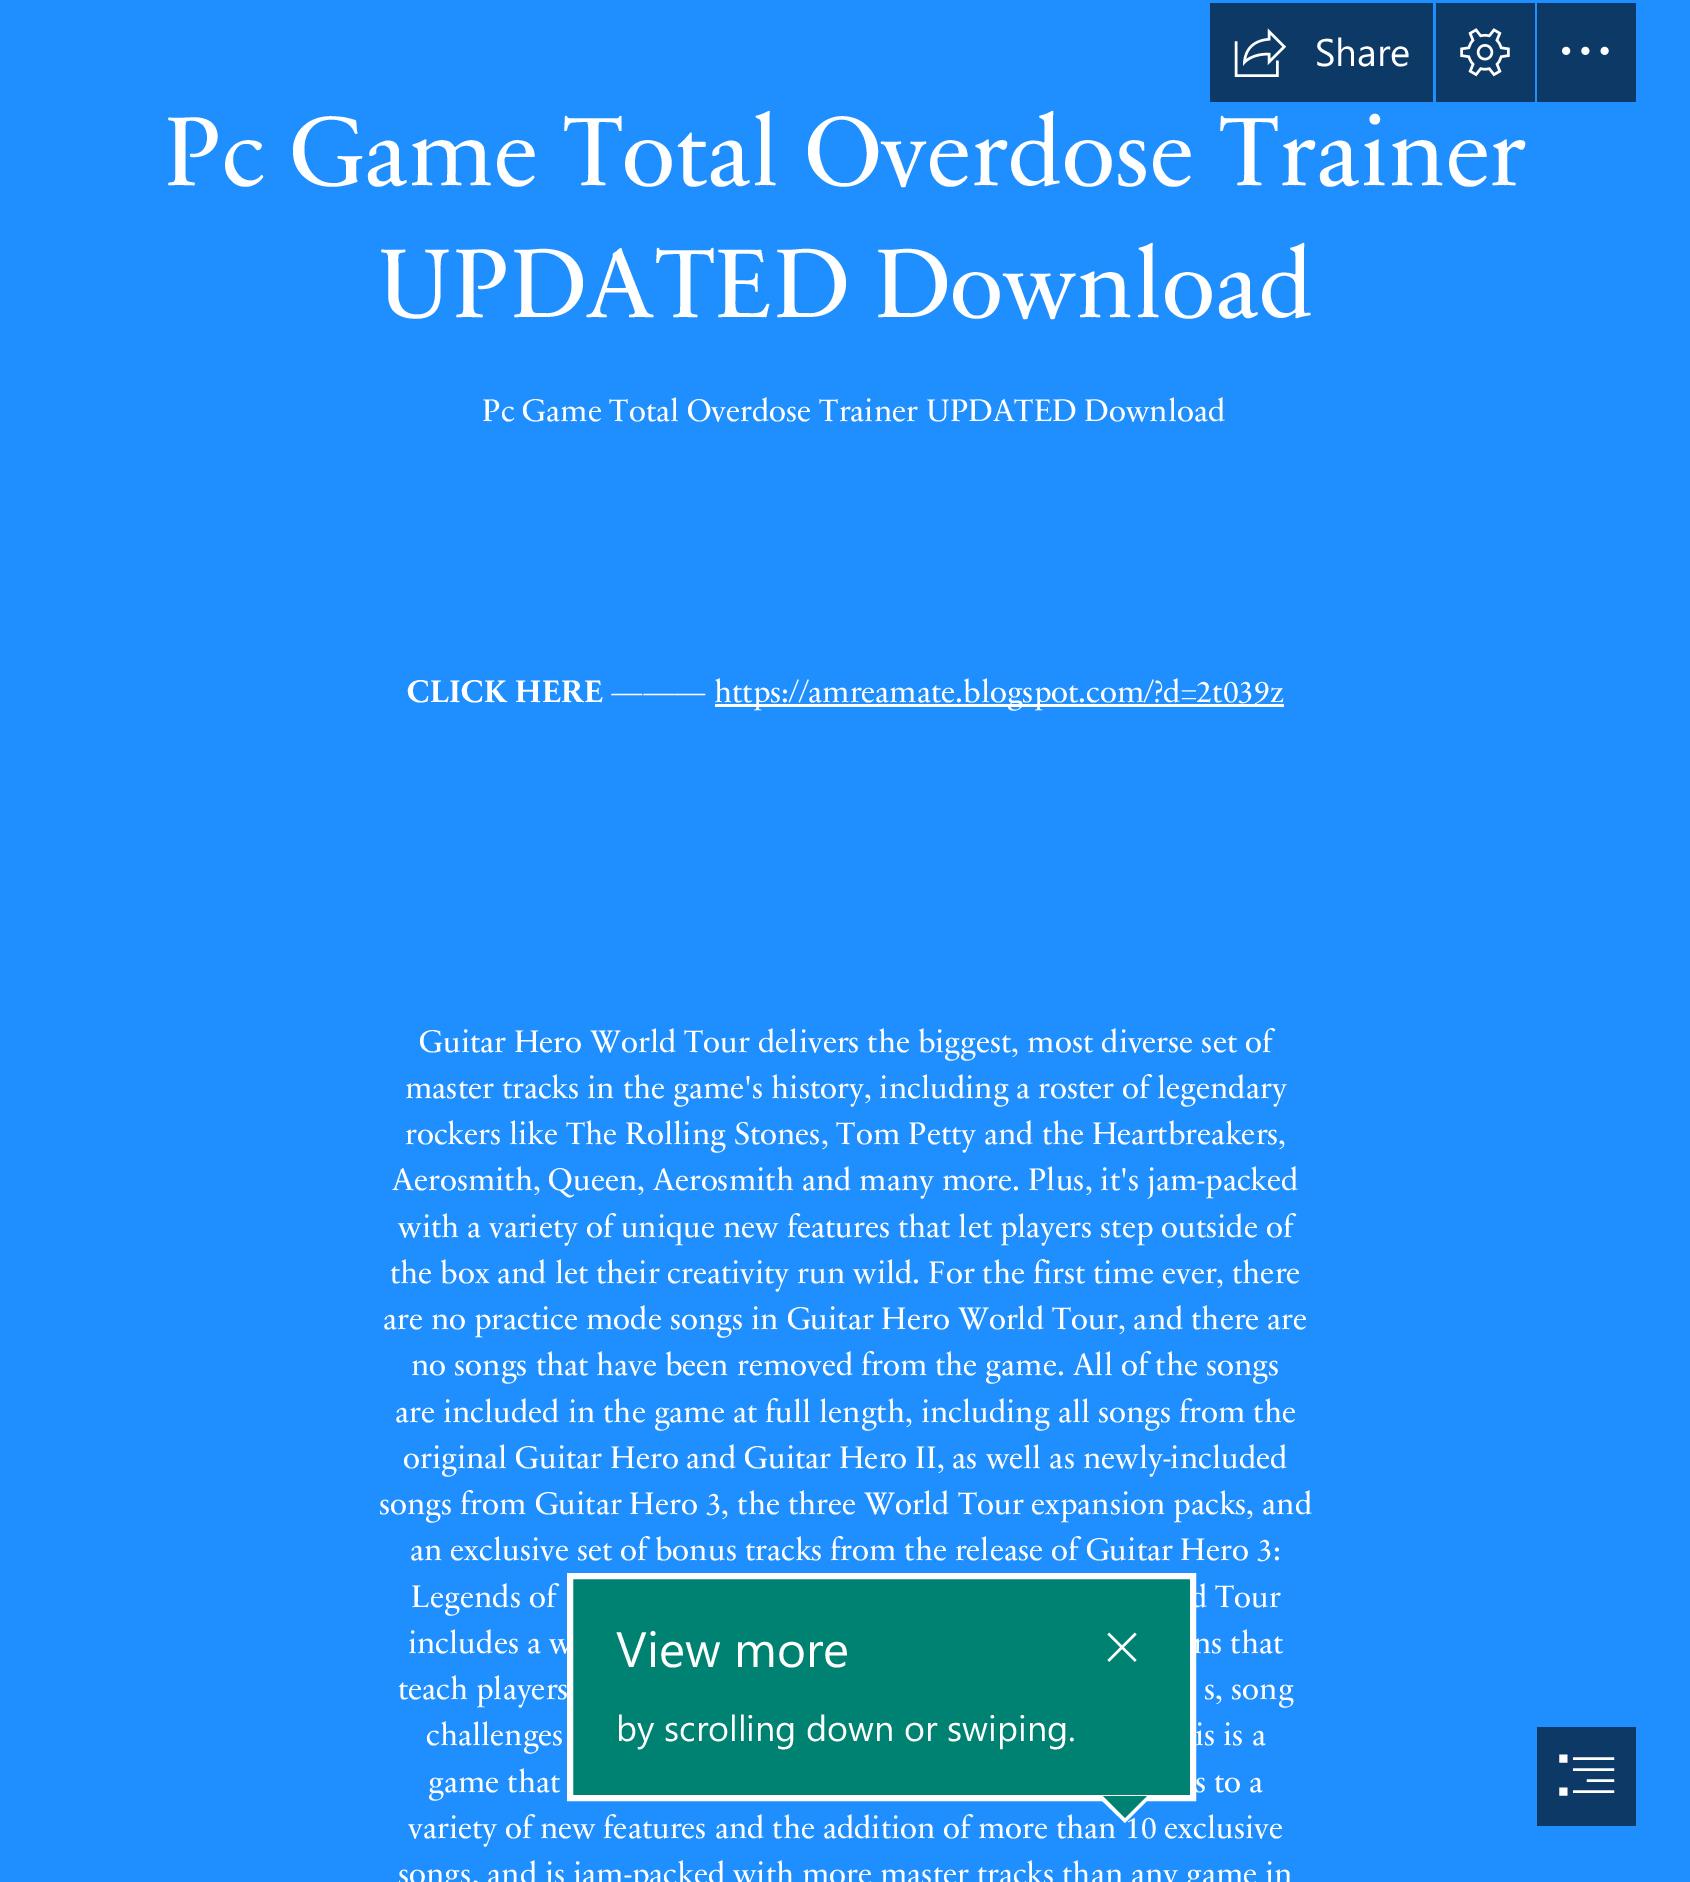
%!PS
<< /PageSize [1690 1882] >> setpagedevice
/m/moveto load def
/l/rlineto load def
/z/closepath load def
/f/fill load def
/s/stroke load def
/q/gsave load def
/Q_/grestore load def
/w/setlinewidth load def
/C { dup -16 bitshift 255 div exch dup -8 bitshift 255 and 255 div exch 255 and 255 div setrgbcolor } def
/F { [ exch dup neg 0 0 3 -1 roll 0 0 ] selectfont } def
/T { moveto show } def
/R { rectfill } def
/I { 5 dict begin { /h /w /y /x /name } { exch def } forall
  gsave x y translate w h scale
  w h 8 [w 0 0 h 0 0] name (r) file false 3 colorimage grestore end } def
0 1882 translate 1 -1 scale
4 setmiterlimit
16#1F8FFF C
0 0 1690 1882 R
16#0C3966 C
1210 3 223 99 R
(1.rgb) 1234 28 53 49 I
/SegoeUI-Regular 38.5 F
16#FFFFFF C
(Share) 1315 66 T
16#0C3966 C
1436 3 99 99 R
(2.rgb) 1460 28 50 49 I
1537 3 99 99 R
(3.rgb) 1562 46 47 9 I
/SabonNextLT-Regular 99.1 F
16#FFFFFF C
(Pc Game Total Overdose Trainer) 164 185 T
(UPDATED Download) 377 317 T
/SabonNextLT-Regular 31.7 F
(Pc Game Total Overdose Trainer UPDATED Download) 482 421 T
/SabonNextLT-Bold 31.7 F
(CLICK HERE) 407 702 T
/SabonNextLT-Regular 31.7 F
(———) 611 702 T
715 704 569 3 R
(https://amreamate.blogspot.com/?d=2t039z) 714 702 T
(Guitar Hero World Tour delivers the biggest, most diverse set of) 419 1052 T
(master tracks in the game's history, including a roster of legendary) 405 1098 T
(rockers like The Rolling Stones, Tom Petty and the Heartbreakers,) 405 1144 T
(Aerosmith, Queen, Aerosmith and many more. Plus, it's jam-packed) 392 1190 T
(with a variety of unique new features that let players step outside of) 398 1237 T
(the box and let their creativity run wild. For the first time ever, there) 390 1283 T
(are no practice mode songs in Guitar Hero World Tour, and there are) 383 1329 T
(no songs that have been removed from the game. All of the songs) 411 1375 T
(are included in the game at full length, including all songs from the) 395 1422 T
(original Guitar Hero and Guitar Hero II, as well as newly-included) 403 1468 T
(songs from Guitar Hero 3, the three World Tour expansion packs, and) 379 1514 T
(an exclusive set of bonus tracks from the release of Guitar Hero 3:) 410 1560 T
(Legends of) 411 1607 T
(d Tour) 1190 1607 T
(includes a w) 408 1653 T
(ns that) 1193 1653 T
(teach players) 398 1699 T
(s, song) 1204 1699 T
(challenges) 426 1745 T
(is is a) 1195 1745 T
(game that) 428 1792 T
(s to a) 1195 1792 T
(variety of new features and the addition of more than 10 exclusive) 408 1838 T
(songs, and is jam-packed with more master tracks than any game in) 398 1884 T
16#008272 C
570 1576 m 623 0 l 0 222 l -623 0 l z q f Q_
16#FFFFFF C
6 w
s
/SegoeUI-Regular 49.5 F
(View more) 616 1667 T
/SegoeUI-Regular 35.75 F
(by scrolling down or swiping.) 616 1741 T
(4.rgb) 1107 1632 30 30 I
1097 1796 m 55 0 l -27 27 l z f
16#008272 C
1103 1796 m 44 0 l -22 22 l z f
16#0C3966 C
1537 1727 99 99 R
(5.rgb) 1559 1754 56 42 I
showpage
